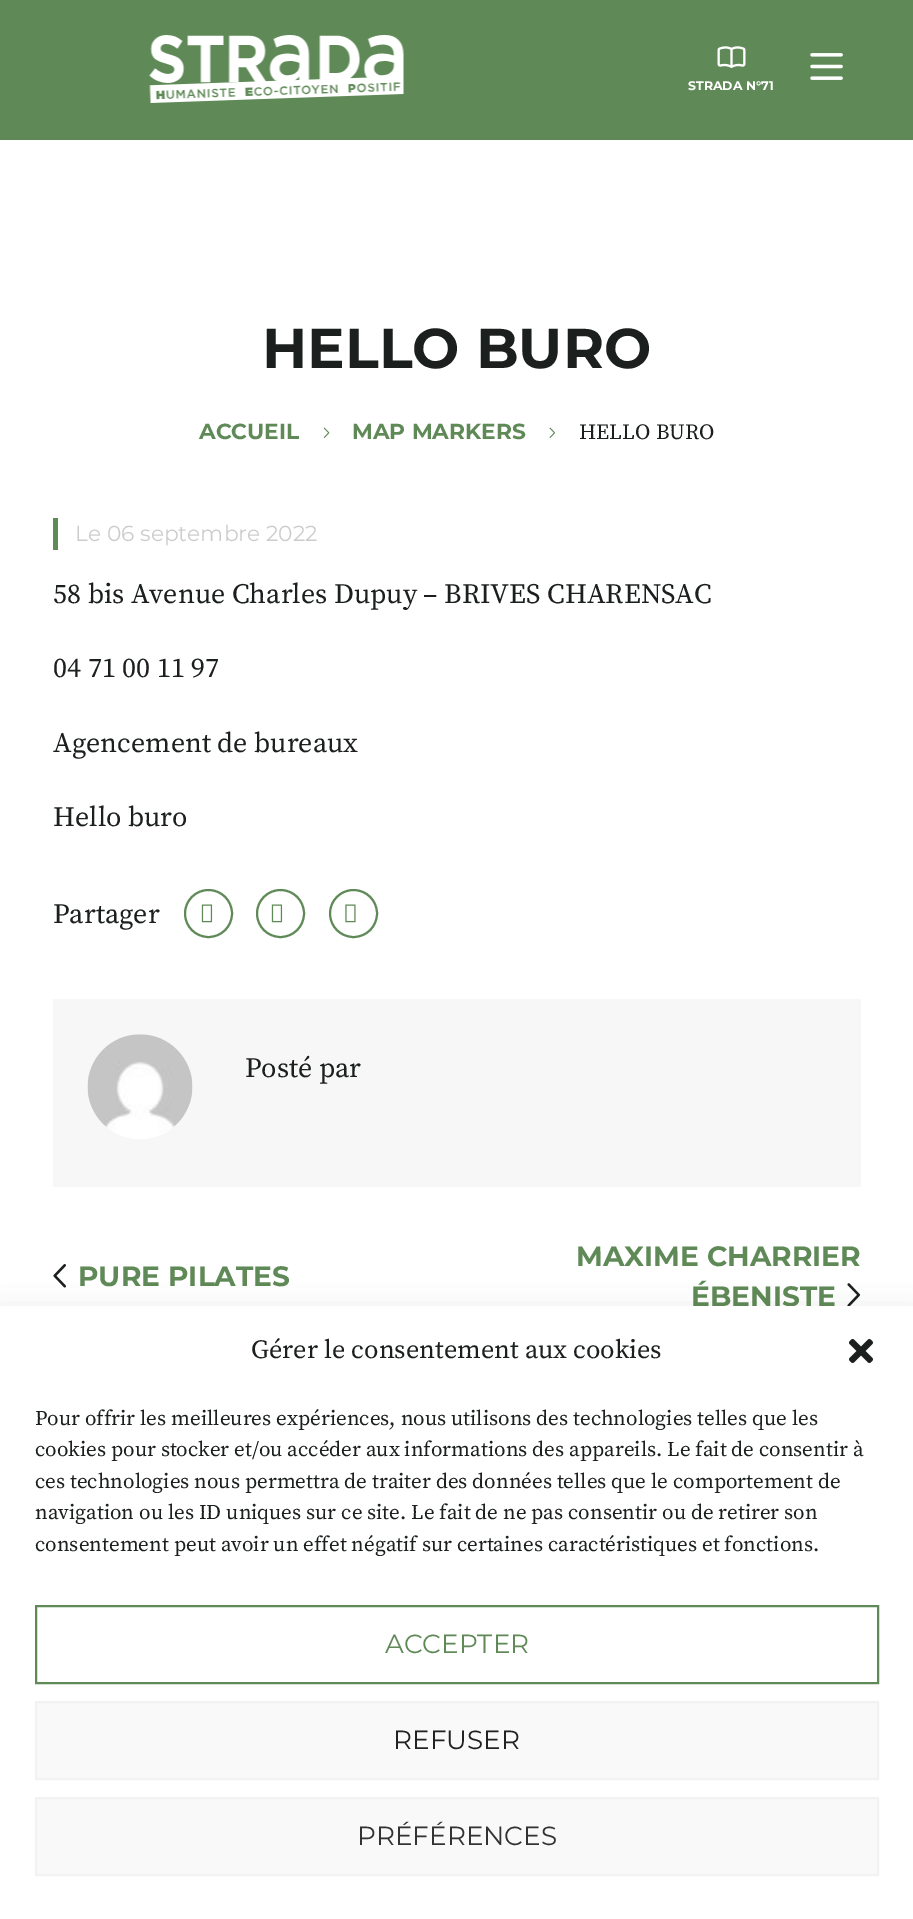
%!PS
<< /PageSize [913 1919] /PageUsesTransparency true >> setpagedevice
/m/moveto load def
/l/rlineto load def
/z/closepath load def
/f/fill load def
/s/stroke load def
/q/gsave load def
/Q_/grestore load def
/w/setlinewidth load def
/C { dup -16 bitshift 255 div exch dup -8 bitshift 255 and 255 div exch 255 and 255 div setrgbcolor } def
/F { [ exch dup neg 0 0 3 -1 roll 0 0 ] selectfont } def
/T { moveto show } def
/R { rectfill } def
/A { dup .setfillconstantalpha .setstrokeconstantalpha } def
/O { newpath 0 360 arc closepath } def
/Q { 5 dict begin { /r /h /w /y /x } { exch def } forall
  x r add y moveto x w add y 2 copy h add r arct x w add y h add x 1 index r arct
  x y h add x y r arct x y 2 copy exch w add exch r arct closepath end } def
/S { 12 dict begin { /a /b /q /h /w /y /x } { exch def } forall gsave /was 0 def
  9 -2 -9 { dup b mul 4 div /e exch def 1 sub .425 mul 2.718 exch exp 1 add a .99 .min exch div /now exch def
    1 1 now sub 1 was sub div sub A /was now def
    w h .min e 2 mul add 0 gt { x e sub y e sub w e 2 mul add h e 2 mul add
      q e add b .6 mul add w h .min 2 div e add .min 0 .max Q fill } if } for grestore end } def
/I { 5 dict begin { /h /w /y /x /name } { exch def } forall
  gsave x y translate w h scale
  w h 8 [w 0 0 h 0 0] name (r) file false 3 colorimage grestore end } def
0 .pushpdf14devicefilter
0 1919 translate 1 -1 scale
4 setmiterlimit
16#FFFFFF C
0 0 913 1919 R
16#5F8A57 C
0 0 913 140 R
(1.rgb) 149 35 255 68 I
(2.rgb) 810 53 33 27 I
(3.rgb) 717 46 29 22 I
/Montserrat-Bold 12.5 F
16#FFFFFF C
(STRADA N°71) 688 90 T
/Montserrat-Bold 56 F
16#1B1F1E C
(HELLO BURO) 262 368 T
/Montserrat-Bold 21.75 F
16#5F8A57 C
(ACCUEIL) 199 439 T
(4.rgb) 323 427 7 11 I
(MAP MARKERS) 352 439 T
(5.rgb) 549 427 7 11 I
/SourceSerifPro-Regular 21.75 F
16#1B1F1E C
(HELLO BURO) 579 439 T
16#5F8A57 C
53 518 5 32 R
/Montserrat-Regular 21.75 F
16#CCCCCC C
(Le 06 septembre 2022) 75 541 T
/SourceSerifPro-Regular 28 F
16#1B1F1E C
(58 bis Avenue Charles Dupuy – BRIVES CHARENSAC) 53 603 T
(04 71 00 11 97) 53 677 T
(Agencement de bureaux) 53 752 T
(Hello buro) 53 826 T
(Partager) 53 923 T
16#5F8A57 C
2 w
208.5 913.5 23.5 O s
(6.rgb) 201 904 12 19 I
280.5 913.5 23.5 O s
(6.rgb) 271 904 12 19 I
353.5 913.5 23.5 O s
(7.rgb) 345 904 11 19 I
16#F7F7F7 C
53 999 808 188 R
(8.rgb) 87 1034 106 105 I
16#1B1F1E C
(Posté par) 245 1077 T
(9.rgb) 53 1264 13 24 I
/Montserrat-Bold 28 F
16#5F8A57 C
(PURE PILATES) 78 1286 T
(MAXIME CHARRIER) 576 1266 T
(ÉBENISTE) 691 1306 T
(10.rgb) 847 1283 13 23 I
16#000000 C
0 1323 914 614 0 17.5 .19 S
16#FFFFFF C
0 1306 913 613 R
/SourceSerifPro-Regular 26.25 F
16#1B1F1E C
(Gérer le consentement aux cookies) 251 1358 T
(11.rgb) 849 1339 24 24 I
/SourceSerifPro-Regular 21 F
(Pour offrir les meilleures expériences, nous utilisons des technologies telles que les) 35 1425 T
(cookies pour stocker et/ou accéder aux informations des appareils. Le fait de consentir à) 35 1456 T
(ces technologies nous permettra de traiter des données telles que le comportement de) 35 1488 T
(navigation ou les ID uniques sur ce site. Le fait de ne pas consentir ou de retirer son) 35 1519 T
(consentement peut avoir un effet négatif sur certaines caractéristiques et fonctions.) 35 1551 T
16#5F8A57 C
36 1606 842 77 rectstroke
/Montserrat-Regular 26.25 F
(ACCEPTER) 385 1653 T
16#F9F9F9 C
36 1702 m 842 0 l 0 77 l -842 0 l z q f Q_
16#F2F2F2 C
s
16#222222 C
(REFUSER) 393 1749 T
16#F9F9F9 C
36 1798 m 842 0 l 0 77 l -842 0 l z q f Q_
16#F2F2F2 C
s
16#333333 C
(PRÉFÉRENCES) 357 1845 T
.poppdf14devicefilter showpage
